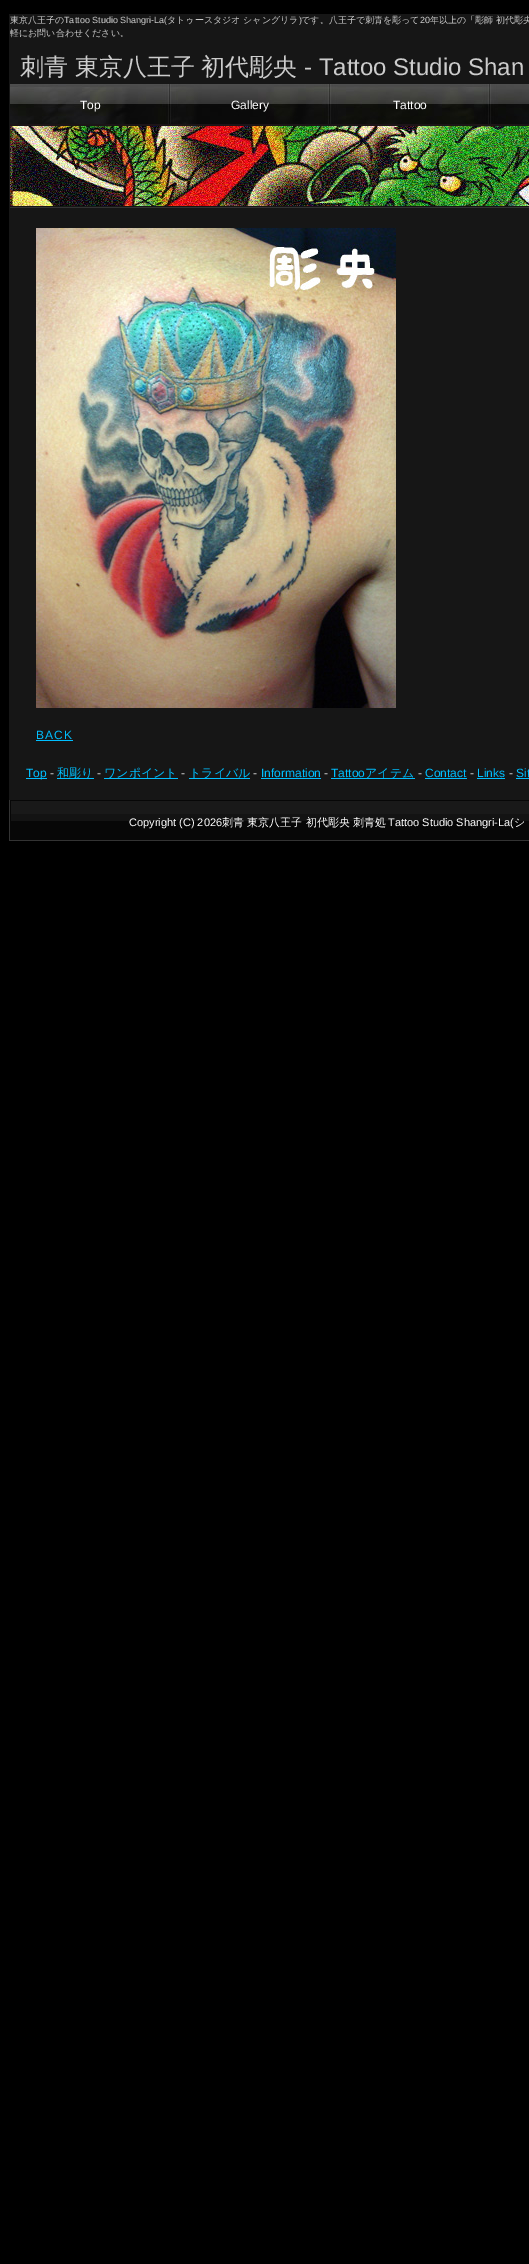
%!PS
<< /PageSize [529 2264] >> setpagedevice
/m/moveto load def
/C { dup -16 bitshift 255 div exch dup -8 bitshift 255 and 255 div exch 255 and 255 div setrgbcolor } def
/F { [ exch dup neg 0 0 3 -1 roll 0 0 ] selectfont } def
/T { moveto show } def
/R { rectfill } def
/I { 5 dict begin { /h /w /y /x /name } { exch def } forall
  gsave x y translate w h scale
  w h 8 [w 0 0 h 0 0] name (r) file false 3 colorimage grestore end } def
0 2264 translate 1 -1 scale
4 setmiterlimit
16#000000 C
0 0 529 2264 R
16#161616 C
9 14 520 786 R
/WenQuanYiZenHei-Medium 9 F
16#CCCCCC C
(東京八王子の) 10 23 T
/LiberationSans-Regular 9 F
(Tattoo Studio Shangri-La\() 64 23 T
/WenQuanYiZenHei-Medium 9 F
(タトゥースタジオ シャングリラ です。八王子で刺青を彫って) 167 23 T
/LiberationSans-Regular 9 F
(20) 420 23 T
/WenQuanYiZenHei-Medium 9 F
(年以上の「彫師 初代彫央) 430 23 T
/LiberationSans-Regular 9 F
(\)) 299 23 T
/WenQuanYiZenHei-Medium 9 F
(軽にお問い合わせください。) 10 36 T
/WenQuanYiZenHei-Medium 24 F
(刺青) 20 75 T
(東京八王子) 75 75 T
(初代彫央) 201 75 T
/LiberationSans-Regular 24 F
(- Tattoo Studio Shan) 304 75 T
(1.rgb) 10 84 160 42 I
/LiberationSans-Regular 12 F
16#FFFFFF C
(Top) 80 109 T
(2.rgb) 170 84 160 42 I
(Gallery) 231 109 T
(3.rgb) 330 84 160 42 I
(Tattoo) 393 109 T
(4.rgb) 490 84 39 42 I
16#333333 C
10 207 519 1 R
(5.rgb) 10 126 519 80 I
(6.rgb) 36 228 360 480 I
16#00BFFF C
36 739 m 1 0 (BACK) ashow
36 740 37 1 R
26 778 21 1 R
(Top) 26 777 T
16#CCCCCC C
(-) 50 777 T
16#00BFFF C
57 778 37 1 R
/WenQuanYiZenHei-Medium 12 F
(和彫り) 57 777 T
/LiberationSans-Regular 12 F
16#CCCCCC C
(-) 97 777 T
16#00BFFF C
104 778 74 1 R
/WenQuanYiZenHei-Medium 12 F
(ワンポイント) 104 777 T
/LiberationSans-Regular 12 F
16#CCCCCC C
(-) 181 777 T
16#00BFFF C
189 778 61 1 R
/WenQuanYiZenHei-Medium 12 F
(トライバル) 189 777 T
/LiberationSans-Regular 12 F
16#CCCCCC C
(-) 253 777 T
16#00BFFF C
(Information) 261 777 T
261 778 60 1 R
16#CCCCCC C
(-) 324 777 T
16#00BFFF C
(Tattoo) 331 777 T
331 778 84 1 R
/WenQuanYiZenHei-Medium 12 F
(アイテム) 365 777 T
/LiberationSans-Regular 12 F
16#CCCCCC C
(-) 418 777 T
16#00BFFF C
(Contact) 425 777 T
425 778 42 1 R
16#CCCCCC C
(-) 470 777 T
16#00BFFF C
(Links) 477 777 T
477 778 28 1 R
16#CCCCCC C
(-) 509 777 T
16#00BFFF C
(Sit) 516 777 T
516 778 13 1 R
(7.rgb) 9 800 520 50 I
/LiberationSans-Regular 11 F
16#FFFFFF C
(Copyright \(C\) 2026) 129 826 T
/WenQuanYiZenHei-Medium 11 F
(刺青 東京八王子 初代彫央 刺青処) 222 826 T
/LiberationSans-Regular 11 F
(Tattoo Studio Shangri-La\() 388 826 T
/WenQuanYiZenHei-Medium 11 F
(シ) 514 826 T
showpage
